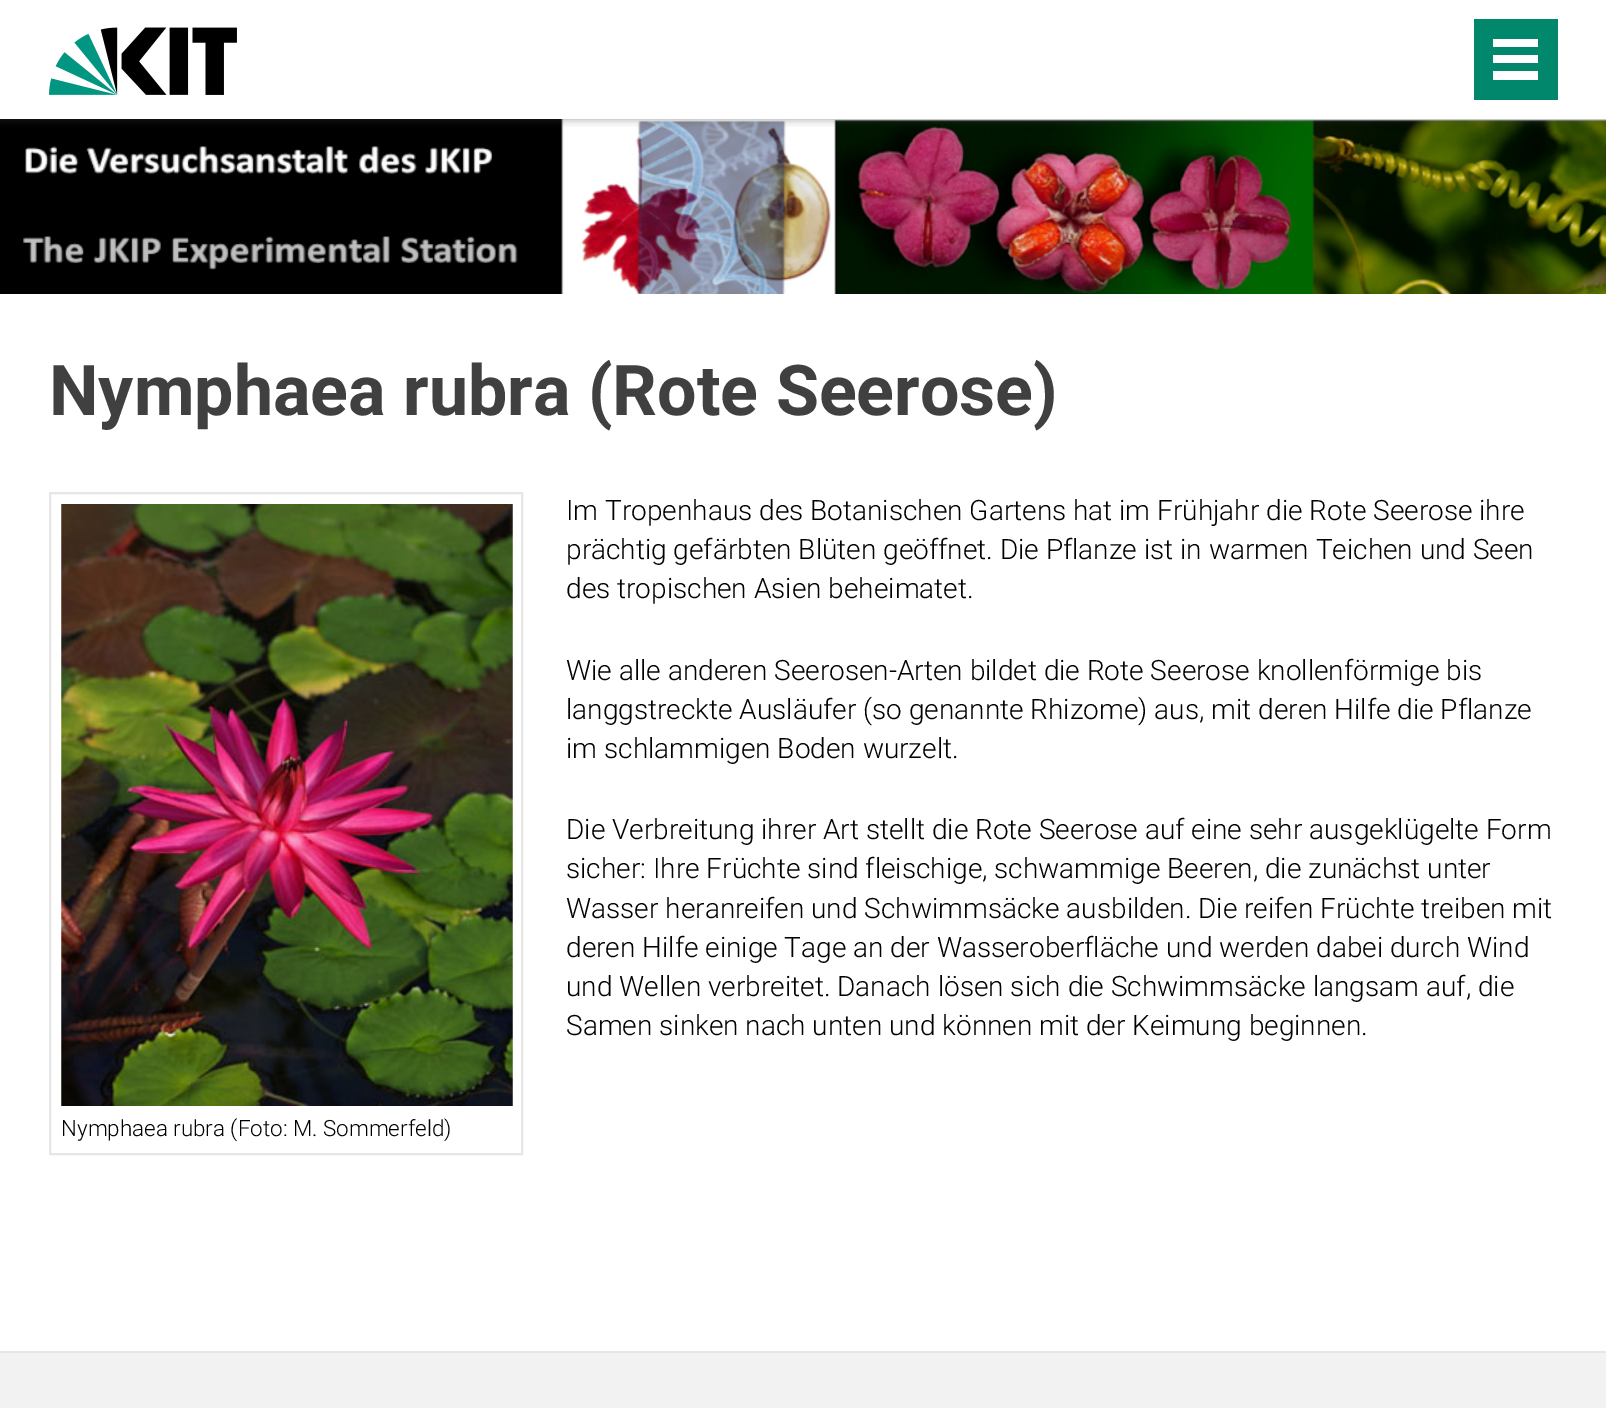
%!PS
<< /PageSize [1606 1408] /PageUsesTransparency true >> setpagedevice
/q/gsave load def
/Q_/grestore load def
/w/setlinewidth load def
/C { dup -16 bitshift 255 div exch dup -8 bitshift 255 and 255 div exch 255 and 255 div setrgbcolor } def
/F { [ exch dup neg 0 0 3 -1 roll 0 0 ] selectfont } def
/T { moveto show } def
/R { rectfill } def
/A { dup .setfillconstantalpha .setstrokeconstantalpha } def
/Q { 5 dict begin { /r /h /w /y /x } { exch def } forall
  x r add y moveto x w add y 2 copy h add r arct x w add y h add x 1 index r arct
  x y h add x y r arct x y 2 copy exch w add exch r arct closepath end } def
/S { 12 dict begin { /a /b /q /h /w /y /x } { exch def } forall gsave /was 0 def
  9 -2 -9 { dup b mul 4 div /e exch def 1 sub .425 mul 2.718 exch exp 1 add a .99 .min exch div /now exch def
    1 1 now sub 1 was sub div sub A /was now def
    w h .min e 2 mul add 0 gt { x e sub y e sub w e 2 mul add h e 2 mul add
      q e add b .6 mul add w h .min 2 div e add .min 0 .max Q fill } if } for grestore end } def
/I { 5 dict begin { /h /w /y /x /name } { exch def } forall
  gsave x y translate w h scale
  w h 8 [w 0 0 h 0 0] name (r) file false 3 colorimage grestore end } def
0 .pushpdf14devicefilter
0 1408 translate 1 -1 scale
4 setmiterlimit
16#FFFFFF C
0 0 1606 1408 R
(2.rgb) 0 119 1606 175 I
q
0 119 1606 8 rectclip
16#404040 C
0 0 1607 119 0 4.5 .5 S
Q_
(1.rgb) 49 27 188 68 I
16#00876C C
1474 19 84 81 R
16#FFFFFF C
1493 71 45 9 R
1493 55 45 8 R
1493 39 45 8 R
/Roboto-Bold 70 F
16#404040 C
(Nymphaea rubra \(Rote Seerose\)) 49 415 T
/Roboto-Light 28 F
16#000000 C
(Im Tropenhaus des Botanischen Gartens hat im Frühjahr die Rote Seerose ihre) 566 520 T
(prächtig gefärbten Blüten geöffnet. Die Pflanze ist in warmen Teichen und Seen) 566 559 T
(des tropischen Asien beheimatet.) 566 598 T
(Wie alle anderen Seerosen-Arten bildet die Rote Seerose knollenförmige bis) 566 680 T
(langgstreckte Ausläufer \(so genannte Rhizome\) aus, mit deren Hilfe die Pflanze) 566 719 T
(im schlammigen Boden wurzelt.) 566 758 T
(Die Verbreitung ihrer Art stellt die Rote Seerose auf eine sehr ausgeklügelte Form) 566 839 T
(sicher: Ihre Früchte sind fleischige, schwammige Beeren, die zunächst unter) 566 878 T
(Wasser heranreifen und Schwimmsäcke ausbilden. Die reifen Früchte treiben mit) 566 918 T
(deren Hilfe einige Tage an der Wasseroberfläche und werden dabei durch Wind) 566 957 T
(und Wellen verbreitet. Danach lösen sich die Schwimmsäcke langsam auf, die) 566 996 T
(Samen sinken nach unten und können mit der Keimung beginnen.) 566 1035 T
16#E6E6E6 C
2 w
50 493 472 661 rectstroke
(3.rgb) 61 504 452 602 I
/Roboto-Light 22.4 F
16#000000 C
(Nymphaea rubra \(Foto: M. Sommerfeld\)) 61 1136 T
16#F2F2F2 C
0 1353 1606 55 R
16#E6E6E6 C
0 1351 1606 2 R
.poppdf14devicefilter showpage
